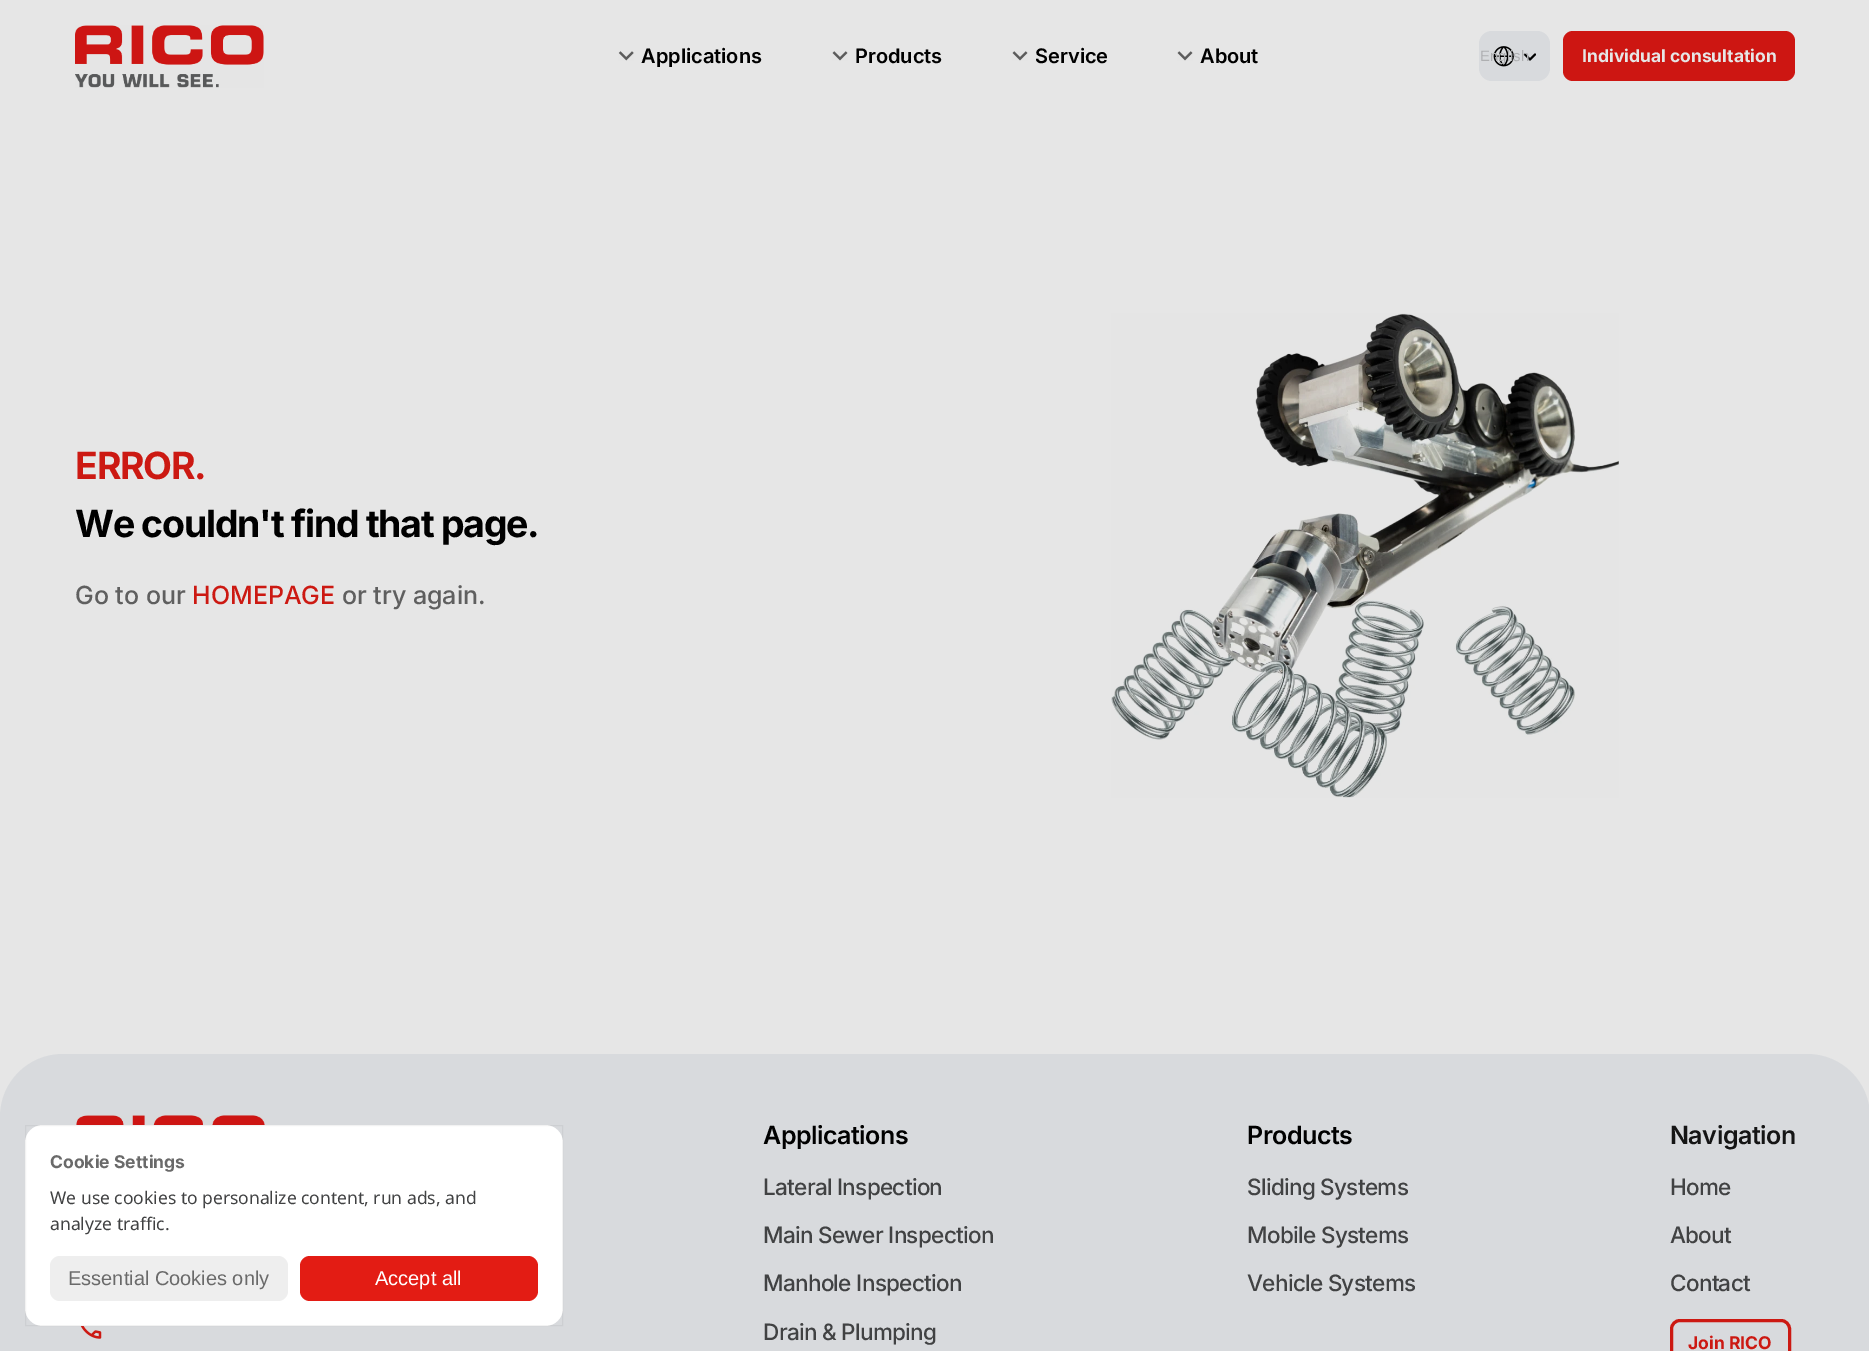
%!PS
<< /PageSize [1869 1351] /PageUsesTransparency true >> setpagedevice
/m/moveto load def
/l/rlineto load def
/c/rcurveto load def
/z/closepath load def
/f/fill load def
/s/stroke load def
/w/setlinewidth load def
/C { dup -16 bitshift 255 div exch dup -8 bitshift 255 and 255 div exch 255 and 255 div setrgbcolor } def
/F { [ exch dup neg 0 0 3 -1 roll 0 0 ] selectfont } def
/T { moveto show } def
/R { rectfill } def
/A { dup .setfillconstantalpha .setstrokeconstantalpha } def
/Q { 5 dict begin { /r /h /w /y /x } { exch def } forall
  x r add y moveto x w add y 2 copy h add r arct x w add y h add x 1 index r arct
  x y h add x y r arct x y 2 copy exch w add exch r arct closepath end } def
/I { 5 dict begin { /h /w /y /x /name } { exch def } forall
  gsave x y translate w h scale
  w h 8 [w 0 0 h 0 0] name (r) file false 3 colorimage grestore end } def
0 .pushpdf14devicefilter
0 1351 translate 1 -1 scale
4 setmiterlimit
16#E6E6E6 C
0 0 1869 1351 R
(1.rgb) 75 25 189 63 I
(2.rgb) 618 51 16 10 I
/Inter-SemiBold 20 F
16#000000 C
(Applications) 641 63 T
(3.rgb) 832 51 16 10 I
(Products) 855 63 T
(3.rgb) 1012 51 16 10 I
(Service) 1035 63 T
(3.rgb) 1177 51 16 10 I
(About) 1200 63 T
16#D8DADD C
1479 31 71 50 13 Q f
(4.rgb) 1493 46 21 21 I
16#000000 C
1.9 w
1 setlinecap
1 setlinejoin
1525 54.5 m 5 5 l 5 -5 l s
/LiberationSans-Regular 15 F
16#AEAFB1 C
(English) 1480 61 T
16#CD1612 C
1563 31 232 50 10 Q f
/Inter-Bold 17.5 F
16#E6E6E6 C
(Individual consultation) 1582 62 T
/Inter-Bold 37.5 F
16#CC1912 C
75 479 m -1.25 0 (ERROR.) ashow
16#000000 C
75 537 m -1.25 0 (We couldn't find that page.) ashow
/Inter-Medium 25 F
16#5F5F5F C
(Go to our) 75 604 T
16#CC1912 C
(HOMEPAGE) 192 604 T
16#5F5F5F C
(or try again.) 342 604 T
(5.rgb) 1111 313 508 485 I
16#D8DADD C
63 1054 m 1744 0 l 35 0 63 28 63 63 c 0 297 l -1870 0 l 0 -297 l 0 -35 28 -63 63 -63 c z f
(6.rgb) 76 1115 189 10 I
(7.rgb) 80 1326 22 13 I
/Inter-SemiBold 25 F
16#000000 C
763 1144 m -.5 0 (Applications) ashow
/Inter-Medium 22.5 F
16#414243 C
763 1195 m -.7 0 (Lateral Inspection) ashow
763 1243 m -.7 0 (Main Sewer Inspection) ashow
763 1291 m -.7 0 (Manhole Inspection) ashow
763 1340 m -.7 0 (Drain & Plumping) ashow
/Inter-SemiBold 25 F
16#000000 C
1247 1144 m -.5 0 (Products) ashow
/Inter-Medium 22.5 F
16#414243 C
1247 1195 m -.7 0 (Sliding Systems) ashow
1247 1243 m -.7 0 (Mobile Systems) ashow
1247 1291 m -.7 0 (Vehicle Systems) ashow
/Inter-SemiBold 25 F
16#151515 C
1670 1144 m -.5 0 (Navigation) ashow
/Inter-Medium 22.5 F
16#414243 C
1670 1195 m -.7 0 (Home) ashow
1670 1243 m -.7 0 (About) ashow
1670 1291 m -.7 0 (Contact) ashow
16#CC1912 C
3 w
0 setlinecap
0 setlinejoin
1671.5 1320.5 118 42 8.5 Q s
/Inter-Bold 17.5 F
(Join RICO) 1688 1349 T
16#FFFFFF C
25 1125 538 201 18 Q f
0.05 A
16#000000 C
1 w
25.5 1125.5 537 200 rectstroke
1 A
16#6A6A6A C
(Cookie Settings) 50 1168 T
/NotoSans-Regular 17.5 F
16#414243 C
(We use cookies to personalize content, run ads, and) 50 1204 T
(analyze traffic.) 50 1230 T
16#EEEEEE C
50 1256 238 45 10 Q f
/LiberationSans-Regular 20 F
16#6A6A6A C
(Essential Cookies only) 68 1285 T
16#E31C14 C
300 1256 238 45 10 Q f
16#FFFFFF C
(Accept all) 375 1285 T
.poppdf14devicefilter showpage
